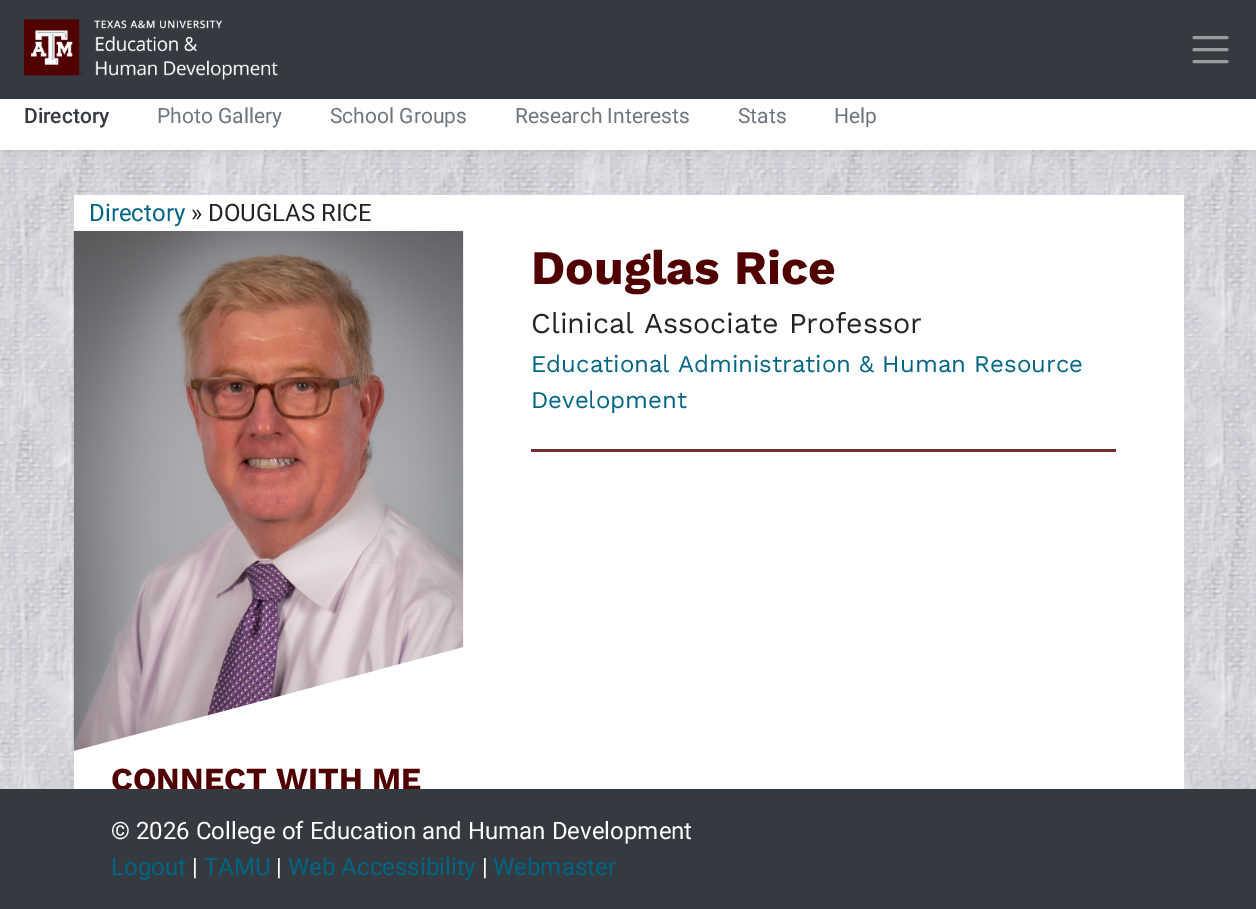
%!PS
<< /PageSize [1256 909] /PageUsesTransparency true >> setpagedevice
/m/moveto load def
/l/rlineto load def
/s/stroke load def
/w/setlinewidth load def
/C { dup -16 bitshift 255 div exch dup -8 bitshift 255 and 255 div exch 255 and 255 div setrgbcolor } def
/F { [ exch dup neg 0 0 3 -1 roll 0 0 ] selectfont } def
/T { moveto show } def
/R { rectfill } def
/A { dup .setfillconstantalpha .setstrokeconstantalpha } def
/Q { 5 dict begin { /r /h /w /y /x } { exch def } forall
  x r add y moveto x w add y 2 copy h add r arct x w add y h add x 1 index r arct
  x y h add x y r arct x y 2 copy exch w add exch r arct closepath end } def
/S { 12 dict begin { /a /b /q /h /w /y /x } { exch def } forall gsave /was 0 def
  9 -2 -9 { dup b mul 4 div /e exch def 1 sub .425 mul 2.718 exch exp 1 add a .99 .min exch div /now exch def
    1 1 now sub 1 was sub div sub A /was now def
    w h .min e 2 mul add 0 gt { x e sub y e sub w e 2 mul add h e 2 mul add
      q e add b .6 mul add w h .min 2 div e add .min 0 .max Q fill } if } for grestore end } def
/I { 5 dict begin { /h /w /y /x /name } { exch def } forall
  gsave x y translate w h scale
  w h 8 [w 0 0 h 0 0] name (r) file false 3 colorimage grestore end } def
0 .pushpdf14devicefilter
0 909 translate 1 -1 scale
4 setmiterlimit
16#FFFFFF C
0 0 1256 909 R
(2.rgb) 0 150 1256 639 I
16#000000 C
0 87 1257 66 0 3 .07 S
16#343A40 C
0 0 1256 99 R
(1.rgb) 24 19 254 61 I
16#9A9DA0 C
3 w
1 setlinecap
1194 37.5 m 33 0 l 1194 49.5 m 33 0 l 1194 61.5 m 33 0 l s
16#FFFFFF C
0 99 1256 51 R
/Roboto-Medium 21 F
16#343A40 C
(Directory) 24 123 T
/Roboto-Regular 21 F
16#6C757D C
(Photo Gallery) 157 123 T
(School Groups) 330 123 T
(Research Interests) 515 123 T
(Stats) 738 123 T
(Help) 834 123 T
16#FFFFFF C
74 195 1110 594 R
/Roboto-Regular 24 F
16#006483 C
(Directory) 89 221 T
16#212529 C
(» DOUGLAS RICE) 191 221 T
16#732F2F C
531 449 585 3 R
/WorkSans-Bold 48 F
16#500000 C
(Douglas Rice) 531 284 T
/WorkSans-Regular 28.75 F
16#212529 C
(Clinical Associate Professor) 531 333 T
/WorkSans-Regular 24 F
16#006483 C
(Educational Administration & Human Resource) 531 372 T
(Development) 531 408 T
(3.rgb) 73 231 391 520 I
/WorkSans-Bold 32 F
16#500000 C
(CONNECT WITH ME) 111 790 T
16#343A40 C
0 789 1256 120 R
/Roboto-Regular 24 F
16#FFFFFF C
(© 2026 College of Education and Human Development) 111 839 T
16#006483 C
(Logout) 111 875 T
16#FFFFFF C
(|) 192 875 T
16#006483 C
(TAMU) 204 875 T
16#FFFFFF C
(|) 276 875 T
16#006483 C
(Web Accessibility) 288 875 T
16#FFFFFF C
(|) 482 875 T
16#006483 C
(Webmaster) 493 875 T
.poppdf14devicefilter showpage
